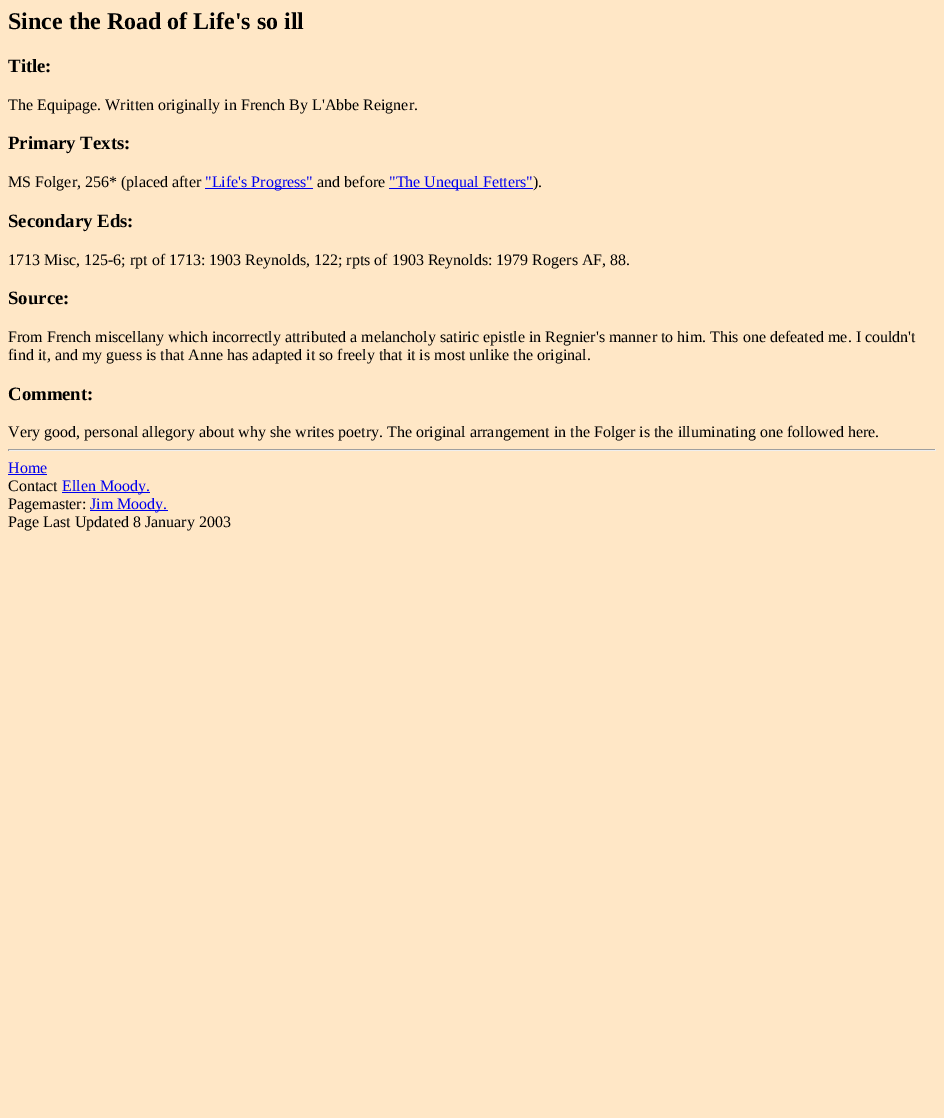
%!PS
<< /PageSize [944 1118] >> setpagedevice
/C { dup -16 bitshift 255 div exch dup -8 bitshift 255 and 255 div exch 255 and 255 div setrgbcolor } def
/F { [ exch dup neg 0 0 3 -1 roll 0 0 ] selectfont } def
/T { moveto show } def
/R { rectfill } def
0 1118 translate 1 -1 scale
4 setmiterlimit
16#FFE7C6 C
0 0 944 1118 R
/LiberationSerif-Bold 24 F
16#000000 C
(Since the Road of Life's so ill) 8 29 T
/LiberationSerif-Bold 18.75 F
(Title:) 8 72 T
/LiberationSerif-Regular 16 F
(The Equipage. Written originally in French By L'Abbe Reigner.) 8 110 T
/LiberationSerif-Bold 18.75 F
(Primary Texts:) 8 149 T
/LiberationSerif-Regular 16 F
(MS Folger, 256* \(placed after) 8 187 T
16#0000EE C
205 188 108 1 R
("Life's Progress") 205 187 T
16#000000 C
(and before) 317 187 T
16#0000EE C
389 188 144 1 R
("The Unequal Fetters") 389 187 T
16#000000 C
(\).) 533 187 T
/LiberationSerif-Bold 18.75 F
(Secondary Eds:) 8 227 T
/LiberationSerif-Regular 16 F
(1713 Misc, 125-6; rpt of 1713: 1903 Reynolds, 122; rpts of 1903 Reynolds: 1979 Rogers AF, 88.) 8 265 T
/LiberationSerif-Bold 18.75 F
(Source:) 8 304 T
/LiberationSerif-Regular 16 F
(From French miscellany which incorrectly attributed a melancholy satiric epistle in Regnier's manner to him. This one defeated me. I couldn't) 8 342 T
(find it, and my guess is that Anne has adapted it so freely that it is most unlike the original.) 8 360 T
/LiberationSerif-Bold 18.75 F
(Comment:) 8 400 T
/LiberationSerif-Regular 16 F
(Very good, personal allegory about why she writes poetry. The original arrangement in the Folger is the illuminating one followed here.) 8 437 T
16#9F9F9F C
8 449 928 1 R
16#EEEEEE C
935 449 1 2 R
8 450 928 1 R
16#9F9F9F C
8 449 1 2 R
16#0000EE C
(Home) 8 473 T
8 474 39 1 R
16#000000 C
(Contact) 8 491 T
16#0000EE C
62 492 88 1 R
(Ellen Moody.) 62 491 T
16#000000 C
(Pagemaster:) 8 509 T
16#0000EE C
90 510 78 1 R
(Jim Moody.) 90 509 T
16#000000 C
(Page Last Updated 8 January 2003) 8 527 T
showpage
